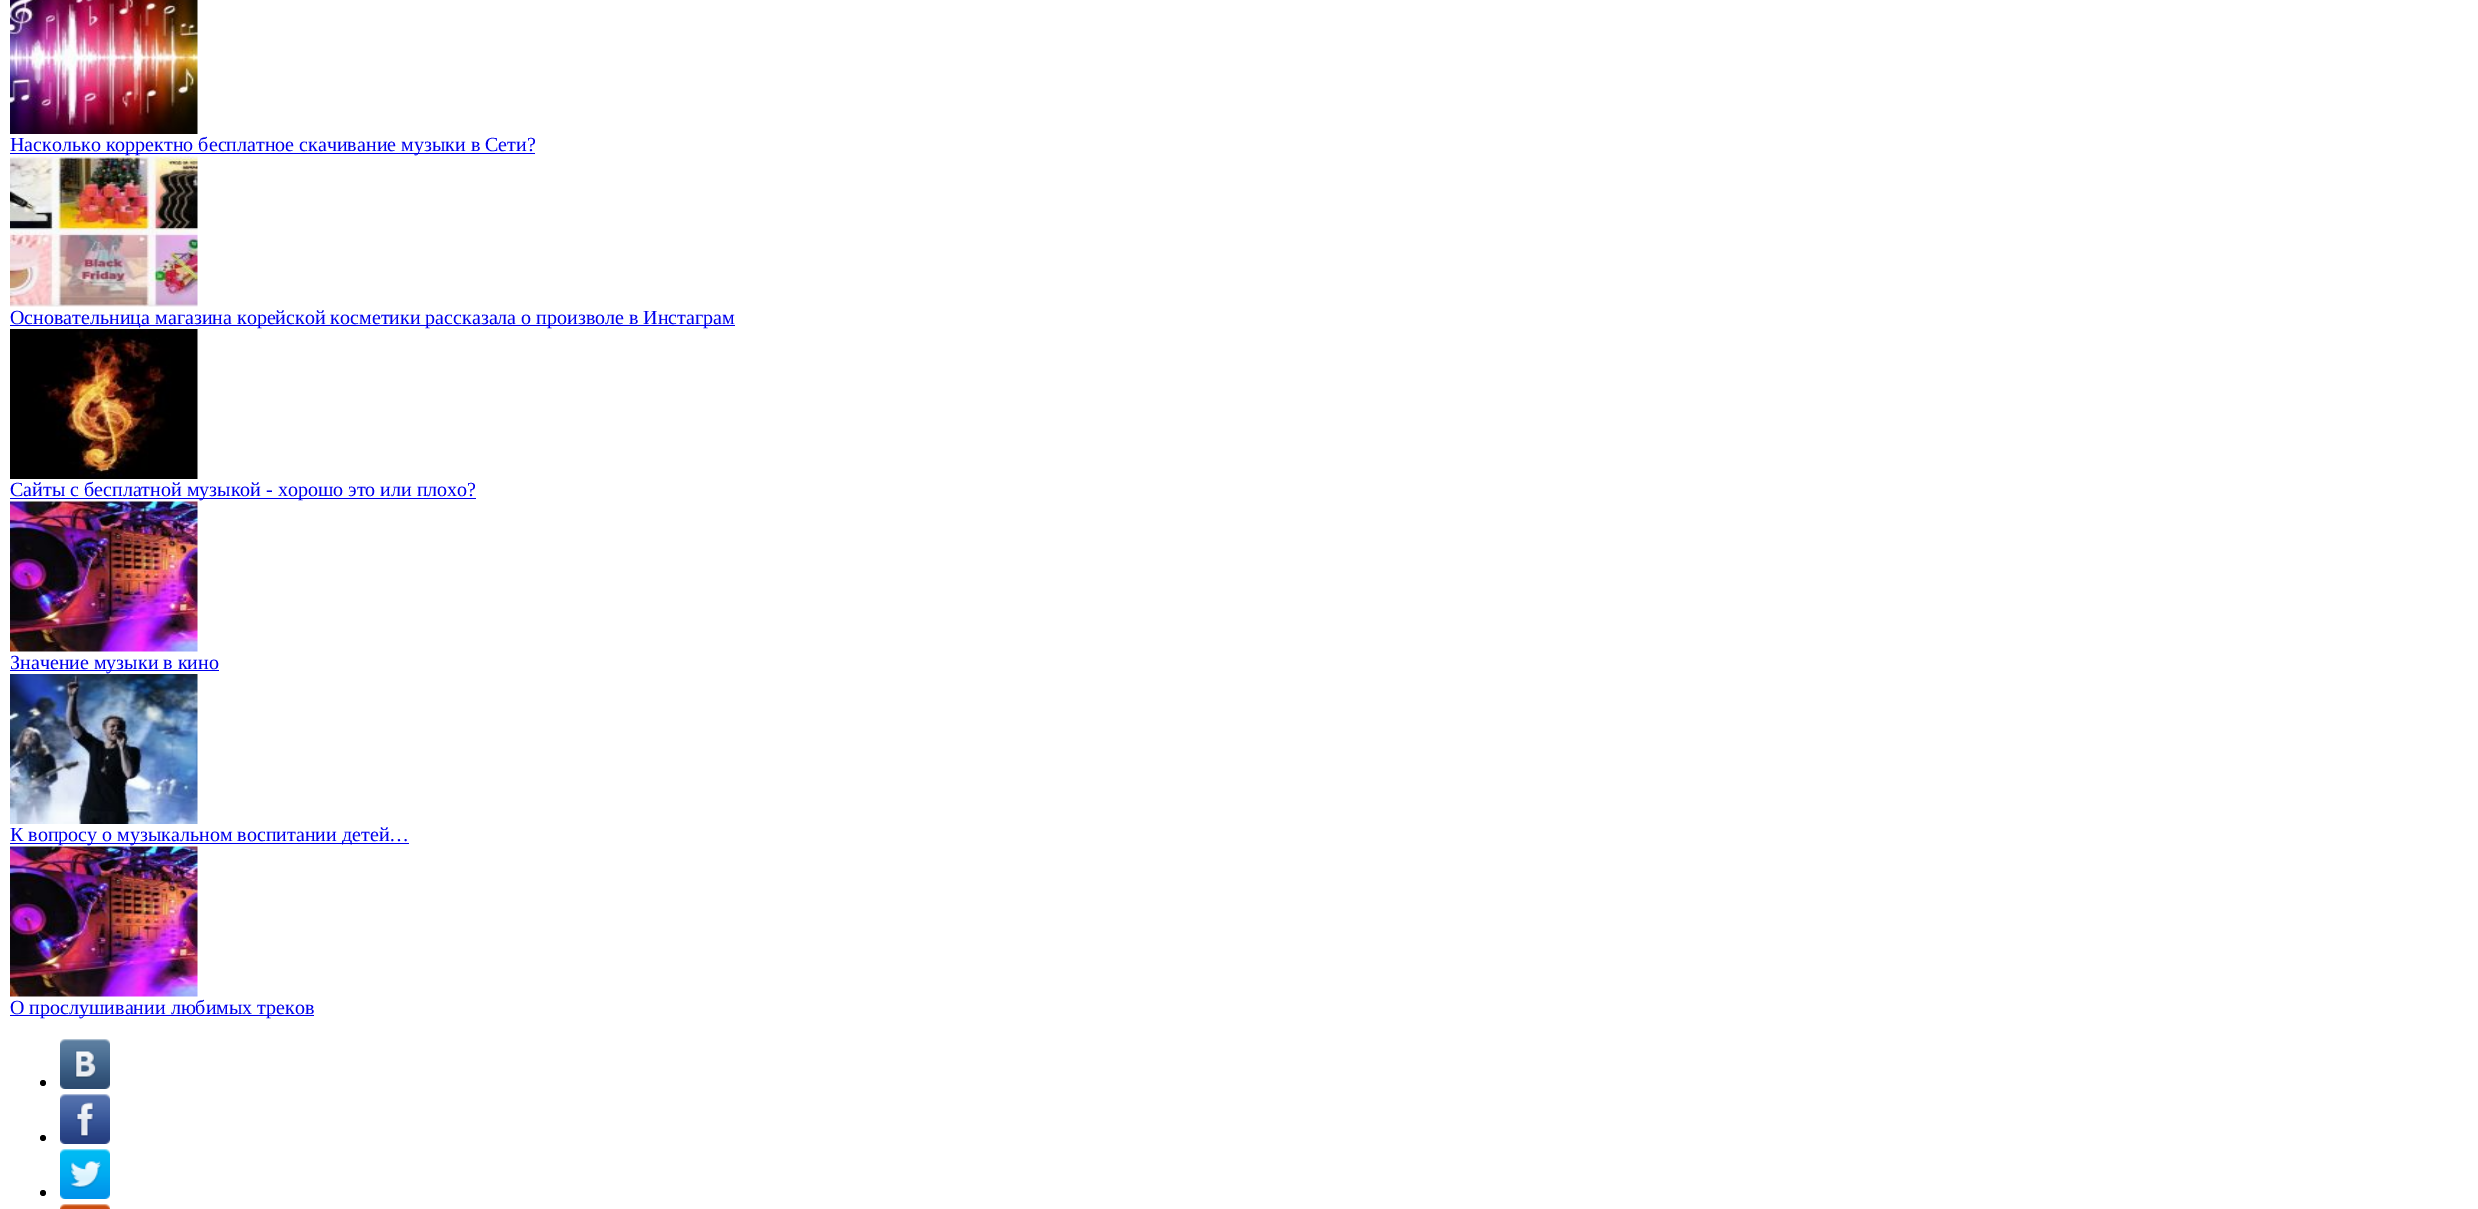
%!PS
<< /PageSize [2478 1209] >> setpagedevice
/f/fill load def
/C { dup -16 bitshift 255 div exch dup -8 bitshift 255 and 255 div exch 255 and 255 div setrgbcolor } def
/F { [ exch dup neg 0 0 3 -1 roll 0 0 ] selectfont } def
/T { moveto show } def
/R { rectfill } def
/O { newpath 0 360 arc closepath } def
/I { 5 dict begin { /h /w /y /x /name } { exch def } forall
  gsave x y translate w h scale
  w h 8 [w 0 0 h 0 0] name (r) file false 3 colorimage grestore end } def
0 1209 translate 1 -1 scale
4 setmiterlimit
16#FFFFFF C
0 0 2478 1209 R
(1.rgb) 10 0 188 134 I
16#0000EE C
10 153 525 1 R
/LiberationSerif-Regular 20 F
(Насколько корректно бесплатное скачивание музыки в Сети?) 10 151 T
(2.rgb) 10 156 188 151 I
10 325 725 1 R
(Основательница магазина корейской косметики рассказала о произволе в Инстаграм) 10 324 T
(3.rgb) 10 329 188 150 I
10 498 466 1 R
(Сайты с бесплатной музыкой - хорошо это или плохо?) 10 496 T
(4.rgb) 10 501 188 151 I
10 670 209 1 R
(Значение музыки в кино) 10 669 T
(5.rgb) 10 674 188 150 I
10 843 399 1 R
(К вопросу о музыкальном воспитании детей…) 10 841 T
(4.rgb) 10 846 188 151 I
10 1015 304 1 R
(О прослушивании любимых треков) 10 1014 T
16#000000 C
43 1083 3 O f
(6.rgb) 60 1039 50 50 I
43 1138 3 O f
(7.rgb) 60 1094 50 50 I
43 1193 3 O f
(8.rgb) 60 1149 50 50 I
(9.rgb) 60 1204 50 5 I
showpage
